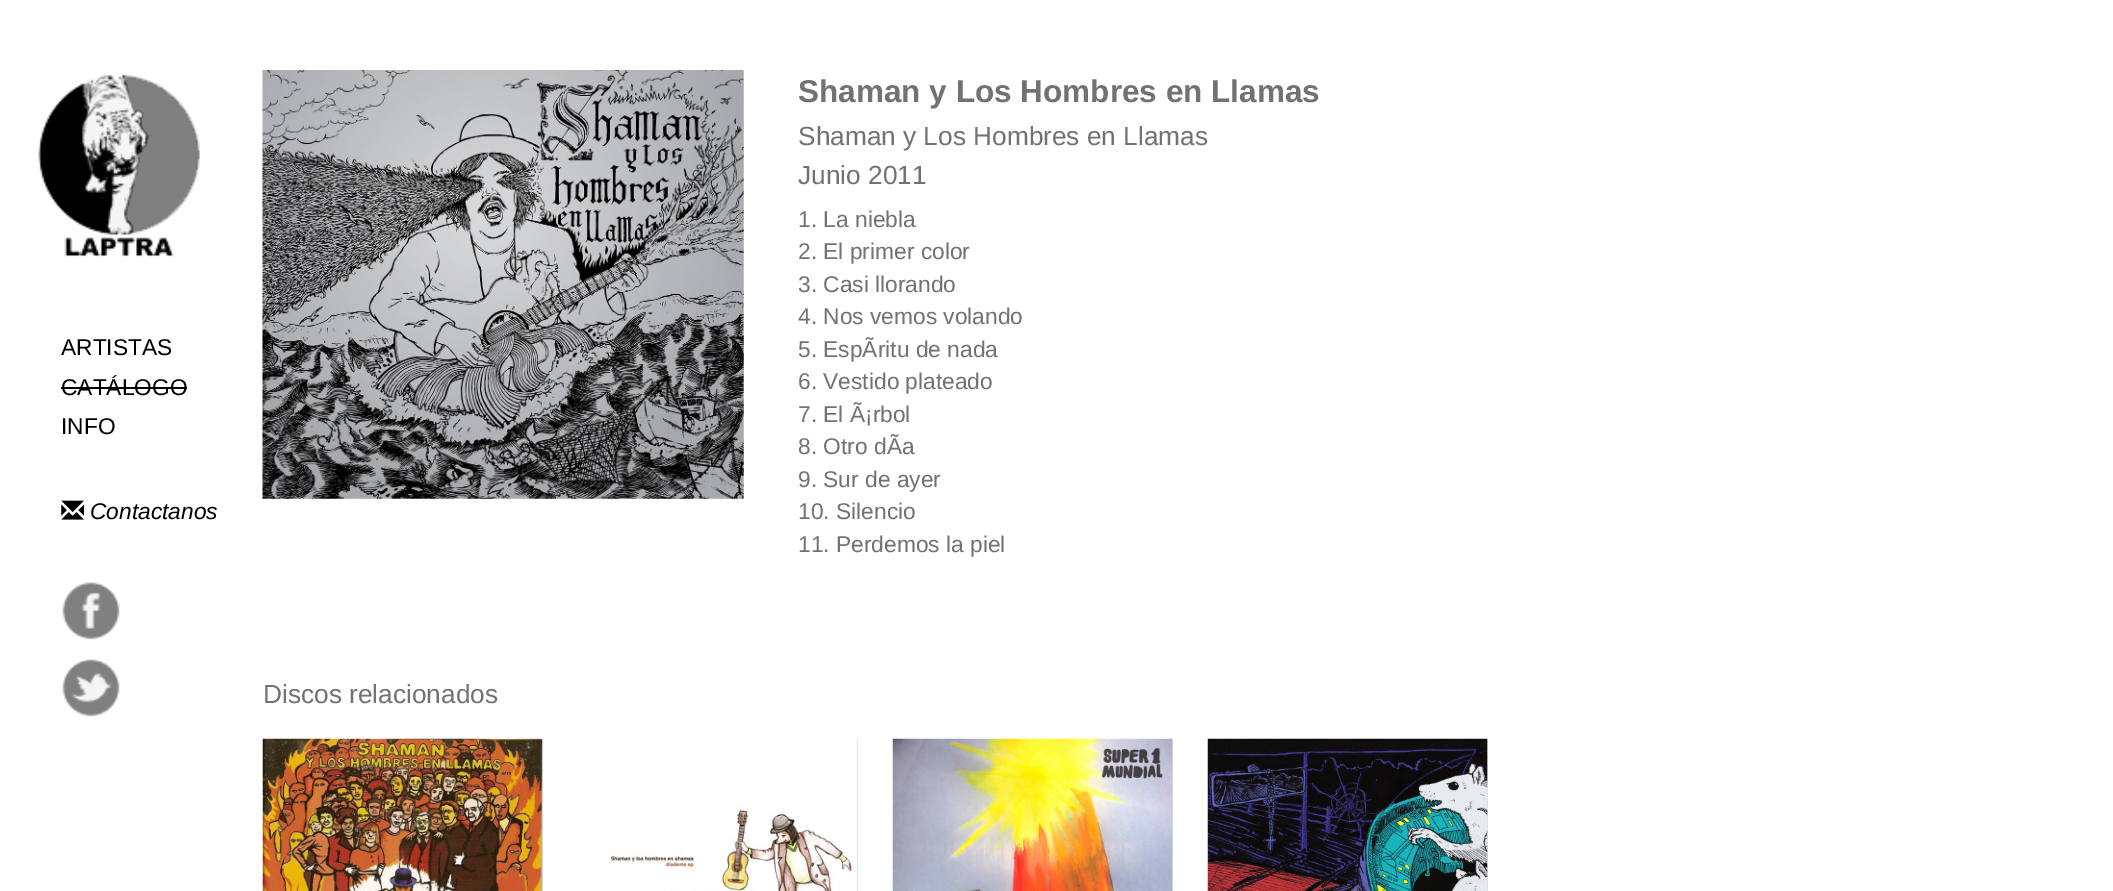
%!PS
<< /PageSize [2113 891] >> setpagedevice
/C { dup -16 bitshift 255 div exch dup -8 bitshift 255 and 255 div exch 255 and 255 div setrgbcolor } def
/F { [ exch dup neg 0 0 3 -1 roll 0 0 ] selectfont } def
/T { moveto show } def
/R { rectfill } def
/I { 5 dict begin { /h /w /y /x /name } { exch def } forall
  gsave x y translate w h scale
  w h 8 [w 0 0 h 0 0] name (r) file false 3 colorimage grestore end } def
0 891 translate 1 -1 scale
4 setmiterlimit
16#FFFFFF C
0 0 2113 891 R
(1.rgb) 38 73 162 184 I
/LiberationSans-Regular 22.75 F
16#000000 C
(ARTISTAS) 61 355 T
(CATÁLOGO) 61 395 T
61 387 126 2 R
(INFO) 61 434 T
(2.rgb) 61 500 23 20 I
/LiberationSans-Italic 22.75 F
(Contactanos) 90 519 T
(3.rgb) 62 582 58 58 I
(4.rgb) 62 659 58 58 I
(5.rgb) 262 70 482 429 I
/LiberationSans-Bold 31.5 F
16#727276 C
(Shaman y Los Hombres en Llamas) 798 102 T
/LiberationSans-Regular 26.25 F
(Shaman y Los Hombres en Llamas) 798 145 T
(Junio 2011) 798 184 T
/LiberationSans-Regular 22.75 F
(1. La niebla) 798 227 T
(2. El primer color) 798 259 T
(3. Casi llorando) 798 292 T
(4. Nos vemos volando) 798 324 T
(5. EspÃritu de nada) 798 357 T
(6. Vestido plateado) 798 389 T
(7. El Ã¡rbol) 798 422 T
(8. Otro dÃa) 798 454 T
(9. Sur de ayer) 798 487 T
(10. Silencio) 798 519 T
(11. Perdemos la piel) 798 552 T
/LiberationSans-Regular 26.25 F
(Discos relacionados) 263 703 T
16#DDDDDD C
542 739 1 152 R
(6.rgb) 262 738 281 153 I
857 739 1 152 R
(7.rgb) 578 739 280 152 I
1172 739 1 152 R
(8.rgb) 892 738 281 153 I
1487 739 1 152 R
(9.rgb) 1207 738 281 153 I
showpage
